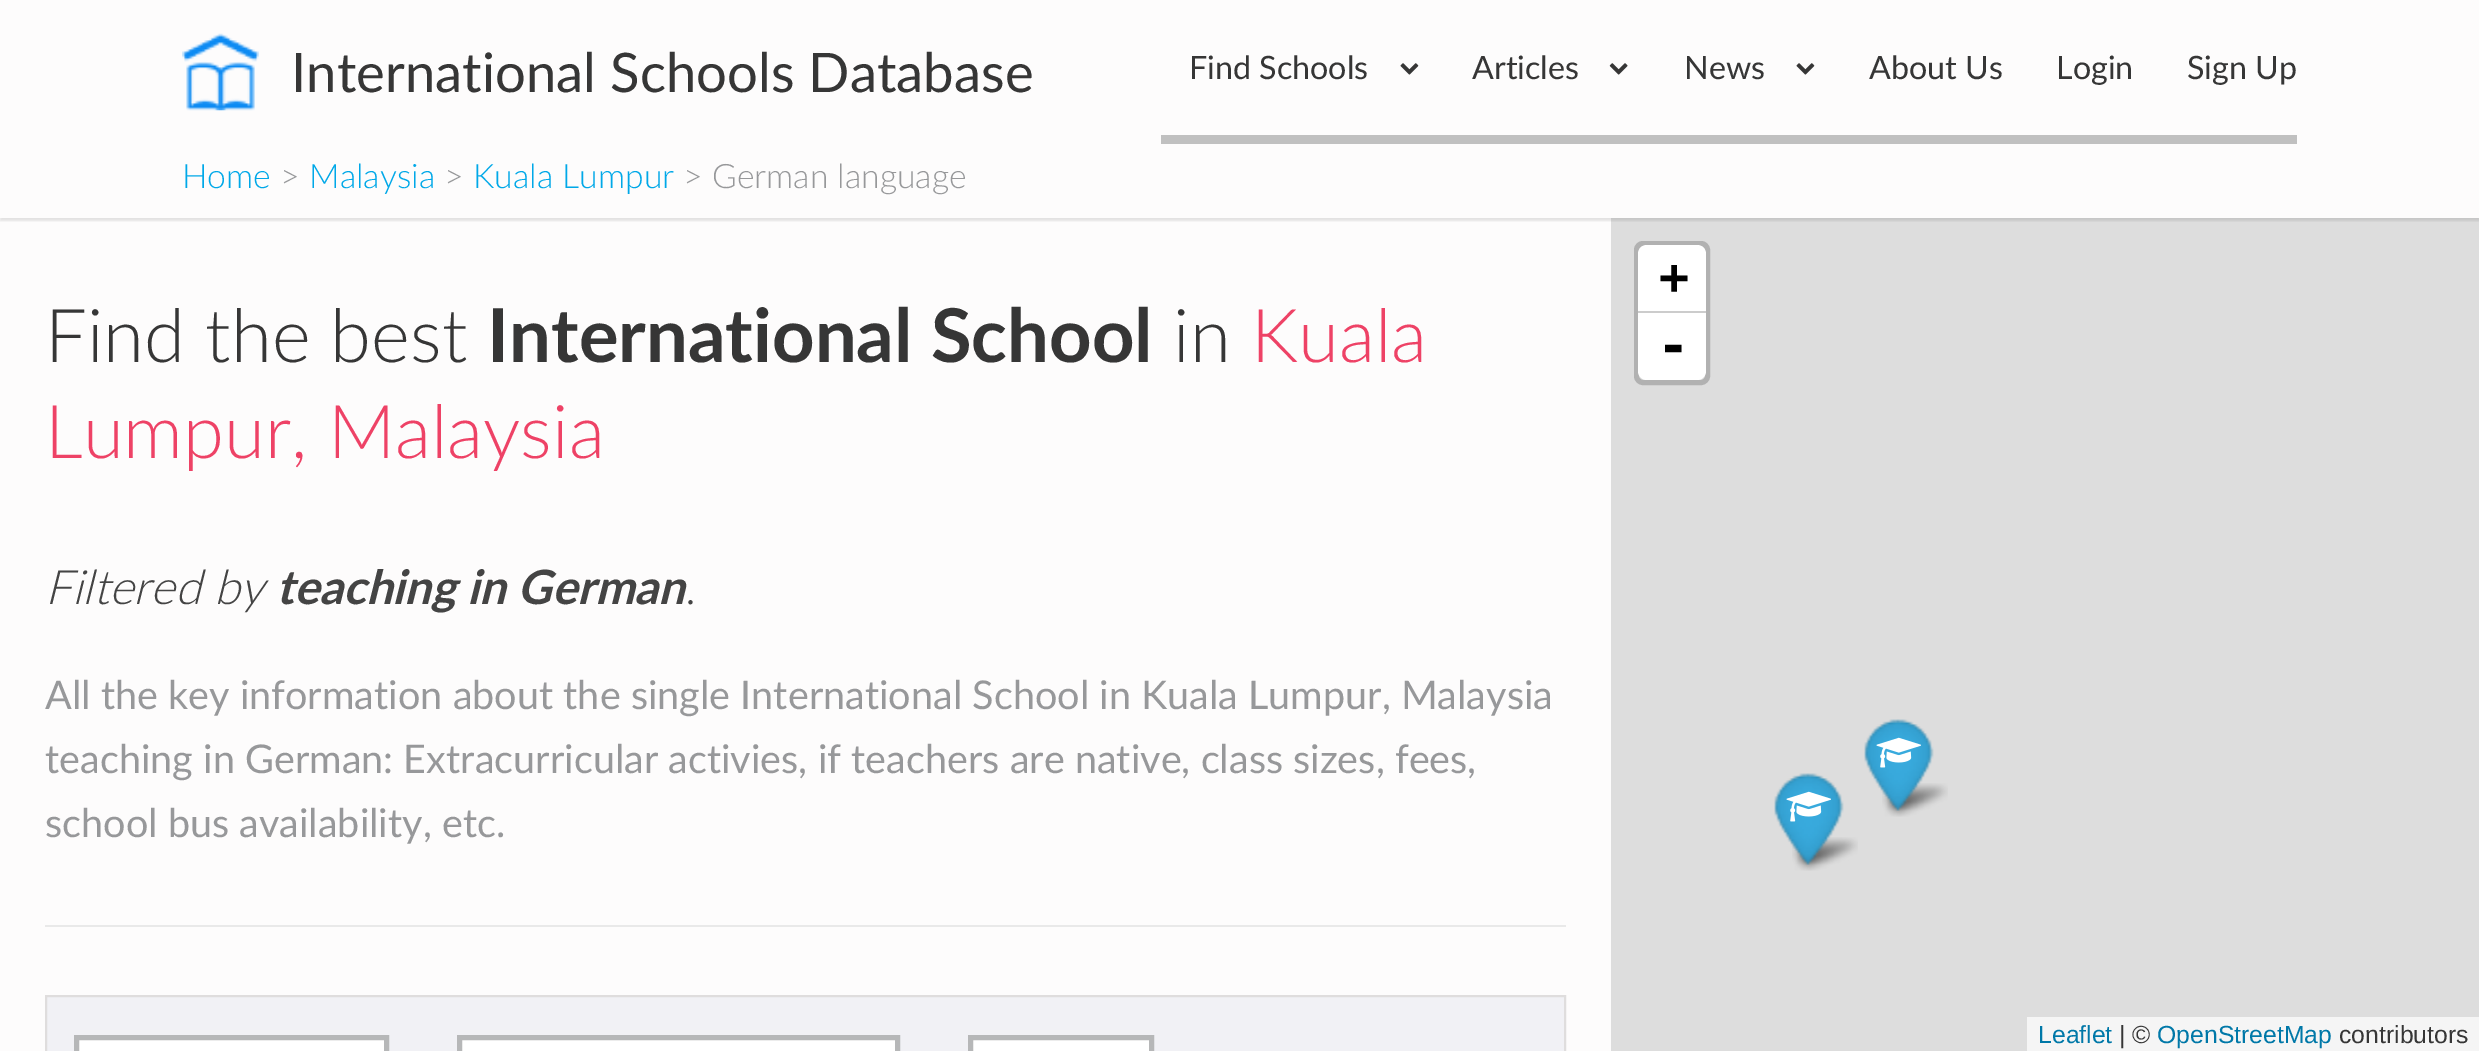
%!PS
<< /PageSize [2479 1051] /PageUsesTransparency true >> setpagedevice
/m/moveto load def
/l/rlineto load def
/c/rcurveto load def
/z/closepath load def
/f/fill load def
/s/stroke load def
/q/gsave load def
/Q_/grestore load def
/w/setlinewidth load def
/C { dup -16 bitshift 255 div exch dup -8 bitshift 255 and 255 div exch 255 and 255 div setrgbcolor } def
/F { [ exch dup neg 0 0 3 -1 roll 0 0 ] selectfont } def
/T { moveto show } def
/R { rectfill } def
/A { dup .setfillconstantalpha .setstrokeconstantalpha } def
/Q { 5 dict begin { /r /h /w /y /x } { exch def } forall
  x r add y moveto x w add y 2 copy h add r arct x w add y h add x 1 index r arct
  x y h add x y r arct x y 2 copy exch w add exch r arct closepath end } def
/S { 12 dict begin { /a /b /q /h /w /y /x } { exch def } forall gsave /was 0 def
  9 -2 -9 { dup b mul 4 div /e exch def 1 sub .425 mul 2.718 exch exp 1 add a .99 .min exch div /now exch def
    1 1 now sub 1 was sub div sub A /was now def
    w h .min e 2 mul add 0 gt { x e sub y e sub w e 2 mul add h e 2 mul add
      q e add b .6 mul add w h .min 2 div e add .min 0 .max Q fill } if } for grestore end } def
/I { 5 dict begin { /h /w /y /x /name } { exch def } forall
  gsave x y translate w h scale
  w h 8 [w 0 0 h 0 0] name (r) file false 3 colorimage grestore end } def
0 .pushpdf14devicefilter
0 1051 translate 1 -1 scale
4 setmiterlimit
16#FDFCFC C
0 0 2479 1051 R
16#DDDDDD C
1611 218 868 833 R
q
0 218 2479 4 rectclip
16#000000 C
0 2 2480 219 0 1 .1 S
Q_
(1.rgb) 182 33 77 78 I
/Lato-Regular 54.5 F
16#363636 C
(International Schools Database) 291 92 T
16#C0C0C0 C
1161 135 1136 9 R
/Lato-Regular 32.25 F
16#363636 C
(Find Schools) 1189 79 T
(2.rgb) 1400 63 19 12 I
(Articles) 1472 79 T
(3.rgb) 1609 63 19 12 I
(News) 1684 79 T
(2.rgb) 1796 63 19 12 I
(About Us) 1869 79 T
(Login) 2056 79 T
(Sign Up) 2187 79 T
/Lato-Light 33.75 F
16#00A8E8 C
(Home) 182 188 T
16#97989A C
(>) 280 188 T
16#00A8E8 C
(Malaysia) 309 188 T
16#97989A C
(>) 444 188 T
16#00A8E8 C
(Kuala Lumpur) 473 188 T
16#97989A C
(> German language) 683 188 T
16#E9E9E9 C
45 925 1521 2 R
/Lato-Light 74.25 F
16#363636 C
(Find the best) 45 362 T
/Lato-Bold 74.25 F
(International School) 487 362 T
/Lato-Light 74.25 F
(in) 1173 362 T
16#EE4266 C
(Kuala) 1251 362 T
(Lumpur, Malaysia) 45 458 T
/Lato-LightItalic 47.25 F
16#444444 C
(Filtered by) 45 604 T
/Lato-BoldItalic 47.25 F
(teaching in German) 276 604 T
/Lato-Light 47.25 F
(.) 685 604 T
/Lato-Regular 39.6 F
16#97989A C
(All the key information about the single International School in Kuala Lumpur, Malaysia) 45 709 T
(teaching in German: Extracurricular activies, if teachers are native, class sizes, fees,) 45 773 T
(school bus availability, etc.) 45 837 T
16#F1F1F5 C
46 996 m 1519 0 l 0 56 l -1519 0 l z q f Q_
16#DFDDDD C
2 w
s
16#FFFFFF C
76.5 1037.5 m 310 0 l 0 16 l -310 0 l z q f Q_
16#B6B7B8 C
5 w
s
16#FFFFFF C
459.5 1037.5 m 438 0 l 0 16 l -438 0 l z q f Q_
16#B6B7B8 C
s
16#FFFFFF C
970.5 1037.5 m 181 0 l 0 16 l -181 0 l z q f Q_
16#B6B7B8 C
s
16#B1B1B1 C
1636.5 243.5 71 139 6.5 Q s
16#FFFFFF C
1647 245 m 50 0 l 5 0 9 4 9 9 c 0 59 l -68 0 l 0 -59 l 0 -5 4 -9 9 -9 c z f
16#CCCCCC C
1638 311 68 2 R
/DejaVuSansMono-Bold 50 F
16#000000 C
(+) 1659 294 T
16#FFFFFF C
1638 313 m 68 0 l 0 58 l 0 5 -4 9 -9 9 c -50 0 l -5 0 -9 -4 -9 -9 c z f
/DejaVuSansMono-Bold 54 F
16#000000 C
(-) 1657 364 T
16#F5F5F5 C
2027 1017 452 34 R
/LiberationSans-Regular 24.75 F
16#0078A8 C
(Leaflet) 2038 1043 T
16#363636 C
(| ©) 2119 1043 T
16#0078A8 C
(OpenStreetMap) 2157 1043 T
16#363636 C
(contributors) 2339 1043 T
(6.rgb) 1792 837 66 34 I
(4.rgb) 1774 773 70 92 I
(5.rgb) 1786 791 45 31 I
(6.rgb) 1882 783 66 34 I
(4.rgb) 1864 719 70 92 I
(5.rgb) 1876 737 45 31 I
.poppdf14devicefilter showpage
